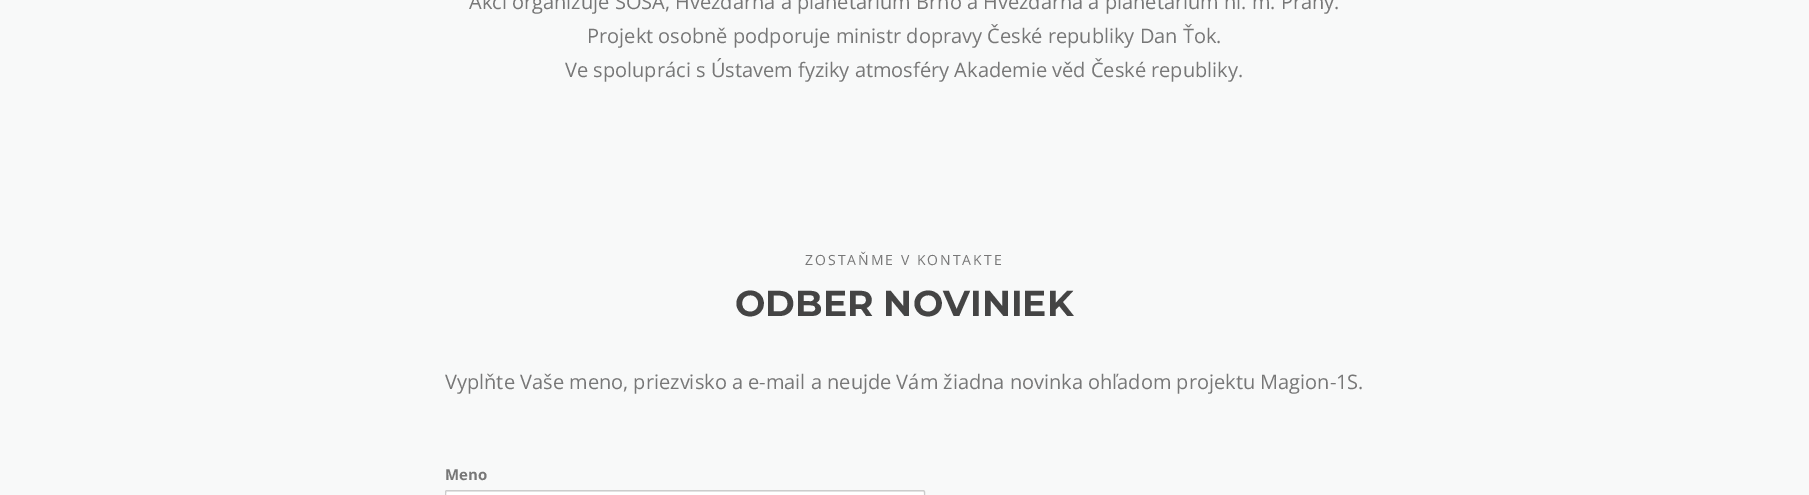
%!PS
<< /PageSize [1809 495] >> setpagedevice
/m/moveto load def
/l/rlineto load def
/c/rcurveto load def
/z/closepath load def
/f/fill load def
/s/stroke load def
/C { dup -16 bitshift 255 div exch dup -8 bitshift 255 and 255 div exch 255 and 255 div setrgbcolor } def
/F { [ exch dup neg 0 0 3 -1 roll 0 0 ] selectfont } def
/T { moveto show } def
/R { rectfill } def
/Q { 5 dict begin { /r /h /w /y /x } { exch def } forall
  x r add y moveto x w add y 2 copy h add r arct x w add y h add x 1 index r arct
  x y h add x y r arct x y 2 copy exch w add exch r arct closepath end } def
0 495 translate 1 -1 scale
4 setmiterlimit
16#F8F9F9 C
0 0 1809 495 R
/OpenSans-Regular 20 F
16#777777 C
(Akci organizuje SOSA, Hvězdárna a planetárium Brno a Hvězdárna a planetárium hl. m. Prahy.) 469 9 T
(Projekt osobně podporuje ministr dopravy České republiky Dan Ťok.) 587 43 T
(Ve spolupráci s Ústavem fyziky atmosféry Akademie věd České republiky.) 565 77 T
/OpenSans-Regular 14 F
805 265 m 2 0 (ZOSTAŇME V KONTAKTE) ashow
/Montserrat-Bold 36 F
16#444444 C
(ODBER NOVINIEK) 735 316 T
/OpenSans-Regular 20 F
16#777777 C
(Vyplňte Vaše meno, priezvisko a e-mail a neujde Vám žiadna novinka ohľadom projektu Magion-1S.) 445 389 T
/OpenSans-Bold 15 F
(Meno) 445 480 T
16#FFFFFF C
445 490 480 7 2 Q f
16#EBEBEB C
447 492 m 476 0 l 1 0 1 1 1 3 c 0 -3 l 0 -1 0 -1 -1 -1 c -476 0 l -1 0 -1 0 -1 1 c 0 1 l z f
16#CCCCCC C
445.5 490.5 479 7 1.5 Q s
showpage
